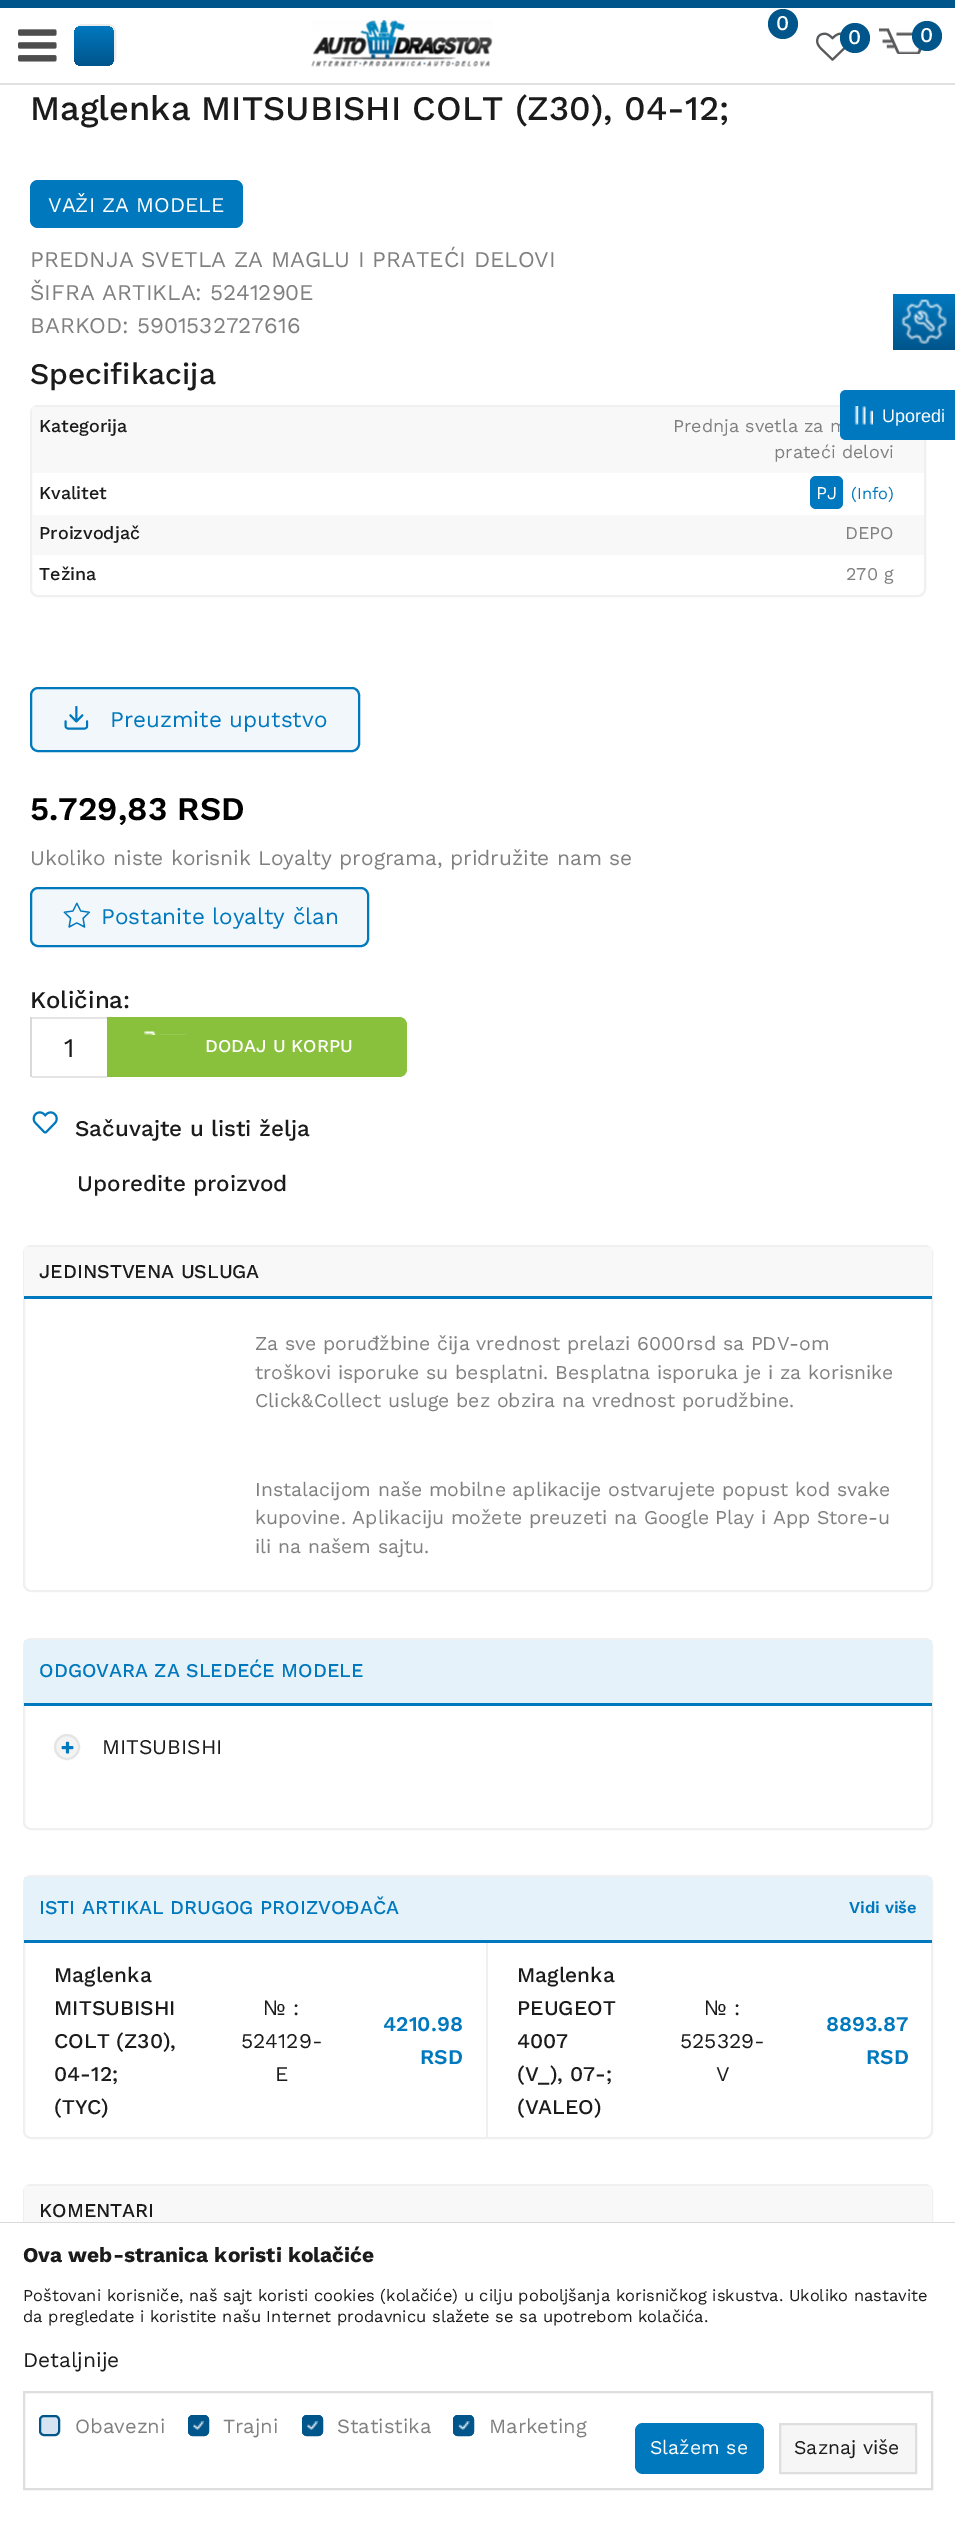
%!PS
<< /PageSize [955 2522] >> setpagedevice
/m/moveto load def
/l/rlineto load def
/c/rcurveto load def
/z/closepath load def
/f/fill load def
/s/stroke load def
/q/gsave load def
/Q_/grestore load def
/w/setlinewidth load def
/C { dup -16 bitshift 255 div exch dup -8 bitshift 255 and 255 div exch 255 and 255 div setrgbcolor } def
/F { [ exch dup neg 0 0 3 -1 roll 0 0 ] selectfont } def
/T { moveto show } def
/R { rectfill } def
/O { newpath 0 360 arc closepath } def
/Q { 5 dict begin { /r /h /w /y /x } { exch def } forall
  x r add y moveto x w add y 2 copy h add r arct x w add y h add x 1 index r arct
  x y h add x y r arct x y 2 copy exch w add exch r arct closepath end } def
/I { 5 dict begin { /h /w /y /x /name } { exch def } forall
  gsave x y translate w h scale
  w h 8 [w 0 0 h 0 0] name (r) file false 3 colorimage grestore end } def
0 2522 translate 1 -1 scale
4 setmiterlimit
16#FFFFFF C
0 0 955 2522 R
16#00558B C
0 0 955 8 R
16#E0E0E0 C
0 83 955 2 R
(1.rgb) 18 29 39 33 I
16#F8F8F8 C
76 25 39 39 7 Q q f Q_
16#ECECEC C
2 w
s
q 74 26 40 40 8 Q clip newpath
<< /ShadingType 2 /ColorSpace /DeviceRGB /Coords [94 66 94 26] /Extend [true true] /Function << /FunctionType 2 /Domain [0 1] /C0 [0 .333 .545] /C1 [0 .471 .749] /N 1 >> >> shfill Q_
(2.rgb) 311 20 182 47 I
16#00558B C
783 24 15 O f
/WorkSans-Medium 21 F
16#FFFFFF C
(0) 776 30 T
(3.rgb) 816 32 30 29 I
16#00558B C
855 38 15 O f
16#FFFFFF C
(0) 848 44 T
(4.rgb) 879 28 43 26 I
16#00558B C
927 36 15 O f
16#FFFFFF C
(0) 920 42 T
/WorkSans-Medium 34.5 F
16#1B1B1B C
(Maglenka MITSUBISHI COLT \(Z30\), 04-12;) 30 120 T
16#0078BD C
30 180 213 48 8 Q f
/WorkSans-Regular 21 F
16#FFFFFF C
(VAŽI ZA MODELE) 48 212 T
/WorkSans-Regular 22.5 F
16#808080 C
(PREDNJA SVETLA ZA MAGLU I PRATEĆI DELOVI) 30 267 T
(ŠIFRA ARTIKLA: 5241290E) 30 300 T
(BARKOD: 5901532727616) 30 333 T
/WorkSans-Medium 30 F
16#1B1B1B C
(Specifikacija) 30 384 T
16#F0F0F0 C
31 406 894 190 7 Q s
16#F8F8F8 C
32 407 892 66 R
/WorkSans-Medium 18 F
16#1B1B1B C
(Kategorija) 39 432 T
/WorkSans-Regular 18 F
16#808080 C
(Prednja svetla za m) 673 432 T
(prateći delovi) 774 458 T
/WorkSans-Medium 18 F
16#1B1B1B C
(Kvalitet) 39 499 T
16#0078BF C
810 476 33 33 6 Q f
/WorkSans-Regular 18 F
16#FFFFFF C
(PJ) 816 499 T
/WorkSans-Regular 16.5 F
16#0078BD C
(\(Info\)) 851 499 T
16#F8F8F8 C
32 515 892 40 R
/WorkSans-Medium 18 F
16#1B1B1B C
(Proizvodjač) 39 539 T
/WorkSans-Regular 18 F
16#808080 C
(DEPO) 845 539 T
/WorkSans-Medium 18 F
16#1B1B1B C
(Težina) 39 580 T
/WorkSans-Regular 18 F
16#808080 C
(270 g) 846 580 T
16#F1F7FB C
31 688 328 63 7 Q q f Q_
16#0078BD C
s
(5.rgb) 64 706 25 24 I
/WorkSans-Regular 22.5 F
(Preuzmite uputstvo) 110 727 T
/WorkSans-SemiBold 33 F
16#000000 C
(5.729,83 RSD) 30 820 T
/WorkSans-Regular 21 F
16#808080 C
(Ukoliko niste korisnik Loyalty programa, pridružite nam se) 30 865 T
16#F1F7FB C
31 888 337 58 7 Q q f Q_
16#0078BD C
s
(6.rgb) 63 902 28 26 I
/WorkSans-Regular 22.5 F
(Postanite loyalty član) 101 924 T
/WorkSans-Medium 24 F
16#1B1B1B C
(Količina:) 30 1008 T
16#D9D9D9 C
30 1017 2 60 R
16#E4E4E4 C
32 1017 75 2 R
32 1076 75 2 R
/WorkSans-Regular 27 F
16#1B1B1B C
(1) 64 1057 T
16#89C03C C
107 1017 m 292 0 l 4.5 0 8 3.5 8 8 c 0 44 l 0 4.5 -3.5 8 -8 8 c -292 0 l z f
(7.rgb) 144 1031 43 4 I
/WorkSans-Medium 18 F
16#FFFFFF C
(DODAJ U KORPU) 205 1052 T
(8.rgb) 32 1111 26 23 I
/WorkSans-Medium 22.5 F
16#1B1B1B C
(Sačuvajte u listi želja) 75 1136 T
(Uporedite proizvod) 77 1191 T
q 893 294 m 62 0 l 0 56 l -62 0 l z clip newpath
<< /ShadingType 2 /ColorSpace /DeviceRGB /Coords [924 350 924 294] /Extend [true true] /Function << /FunctionType 2 /Domain [0 1] /C0 [0 .333 .545] /C1 [0 .471 .749] /N 1 >> >> shfill Q_
(9.rgb) 901 299 46 45 I
16#0078BF C
846 390 m 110 0 l 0 50 l -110 0 l -3.5 0 -6 -2.5 -6 -6 c 0 -38 l 0 -3.5 2.5 -6 6 -6 c z f
(10.rgb) 854 406 19 19 I
/LiberationSans-Regular 18 F
16#FFFFFF C
(Uporedi) 882 422 T
16#F0F0F0 C
24 1246 908 345 7 Q s
16#F8F8F8 C
24 1247 908 49 R
16#0078BD C
24 1296 908 3 R
/WorkSans-Medium 19.5 F
16#1B1B1B C
(JEDINSTVENA USLUGA) 39 1278 T
/WorkSans-Regular 19.5 F
16#808080 C
(Za sve poruđžbine čija vrednost prelazi 6000rsd sa PDV-om) 255 1350 T
(troškovi isporuke su besplatni. Besplatna isporuka je i za korisnike) 255 1379 T
(Click&Collect usluge bez obzira na vrednost porudžbine.) 255 1407 T
(Instalacijom naše mobilne aplikacije ostvarujete popust kod svake) 255 1496 T
(kupovine. Aplikaciju možete preuzeti na Google Play i App Store-u) 255 1524 T
(ili na našem sajtu.) 255 1553 T
16#F0F0F0 C
24 1639 908 190 7 Q s
16#E6F2F9 C
24 1640 908 63 R
16#0078BD C
24 1703 908 3 R
/WorkSans-Medium 19.5 F
(ODGOVARA ZA SLEDEĆE MODELE) 39 1677 T
16#F3F3F3 C
67 1747 12 O q f Q_
16#E4E4E4 C
s
(11.rgb) 61 1741 13 13 I
/WorkSans-Regular 21 F
16#1B1B1B C
(MITSUBISHI) 102 1754 T
16#F0F0F0 C
24 1876 908 262 7 Q s
16#E6F2F9 C
24 1877 908 63 R
16#0078BD C
24 1940 908 3 R
/WorkSans-Medium 19.5 F
(ISTI ARTIKAL DRUGOG PROIZVOĐAČA) 39 1914 T
/WorkSans-SemiBold 16.5 F
(Vidi više) 849 1913 T
/WorkSans-Medium 21 F
16#1B1B1B C
(Maglenka) 54 1982 T
(MITSUBISHI) 54 2015 T
(COLT \(Z30\),) 54 2048 T
(04-12;) 54 2081 T
(\(TYC\)) 54 2114 T
/LiberationSans-Regular 21 F
(№) 263 2015 T
/WorkSans-Regular 21 F
(:) 293 2015 T
(524129-) 241 2048 T
(E) 275 2081 T
/WorkSans-SemiBold 21 F
16#0078BD C
(4210.98) 383 2031 T
(RSD) 420 2064 T
16#F0F0F0 C
486 1943 2 195 R
/WorkSans-Medium 21 F
16#1B1B1B C
(Maglenka) 517 1982 T
(PEUGEOT) 517 2015 T
(4007) 517 2048 T
(\(V_\), 07-;) 517 2081 T
(\(VALEO\)) 517 2114 T
/LiberationSans-Regular 21 F
(№) 704 2015 T
/WorkSans-Regular 21 F
(:) 734 2015 T
(525329-) 680 2048 T
(V) 716 2081 T
/WorkSans-SemiBold 21 F
16#0078BD C
(8893.87) 826 2031 T
(RSD) 866 2064 T
16#F0F0F0 C
24 2185 908 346 7 Q s
16#F8F8F8 C
24 2186 908 36 R
/WorkSans-Medium 19.5 F
16#1B1B1B C
(KOMENTARI) 39 2217 T
16#D9D9D9 C
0 2223 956 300 rectstroke
16#FFFFFF C
0 2223 955 299 R
/WorkSans-Bold 21 F
16#1B1B1B C
(Ova web-stranica koristi kolačiće) 23 2262 T
/WorkSans-Regular 16.5 F
(Poštovani korisniče, naš sajt koristi cookies \(kolačiće\) u cilju poboljšanja korisničkog iskustva. Ukoliko nastavite) 23 2301 T
(da pregledate i koristite našu Internet prodavnicu slažete se sa upotrebom kolačića.) 23 2322 T
/WorkSans-Regular 21 F
(Detaljnije) 23 2367 T
16#DEDEDE C
24 2392 908 97 rectstroke
16#D6E3F0 C
40 2416 19 19 4 Q q f Q_
16#00558B C
s
/WorkSans-Regular 20.25 F
16#808080 C
(Obavezni) 75 2433 T
16#00558B C
188 2415 21 21 5 Q f
(12.rgb) 193 2421 11 9 I
189 2416 19 19 4 Q s
16#808080 C
(Trajni) 223 2433 T
16#00558B C
302 2415 21 21 5 Q f
(12.rgb) 307 2421 11 9 I
303 2416 19 19 4 Q s
16#808080 C
(Statistika) 337 2433 T
16#00558B C
453 2415 21 21 5 Q f
(13.rgb) 458 2421 12 9 I
454 2416 19 19 4 Q s
16#808080 C
(Marketing) 489 2433 T
16#0078BD C
635 2423 129 51 8 Q f
/WorkSans-Regular 19.5 F
16#FFFFFF C
(Slažem se) 650 2454 T
16#F6F6F6 C
780 2424 m 136 0 l 0 49 l -136 0 l z q f Q_
16#DEDEDE C
s
16#1B1B1B C
(Saznaj više) 794 2454 T
showpage
